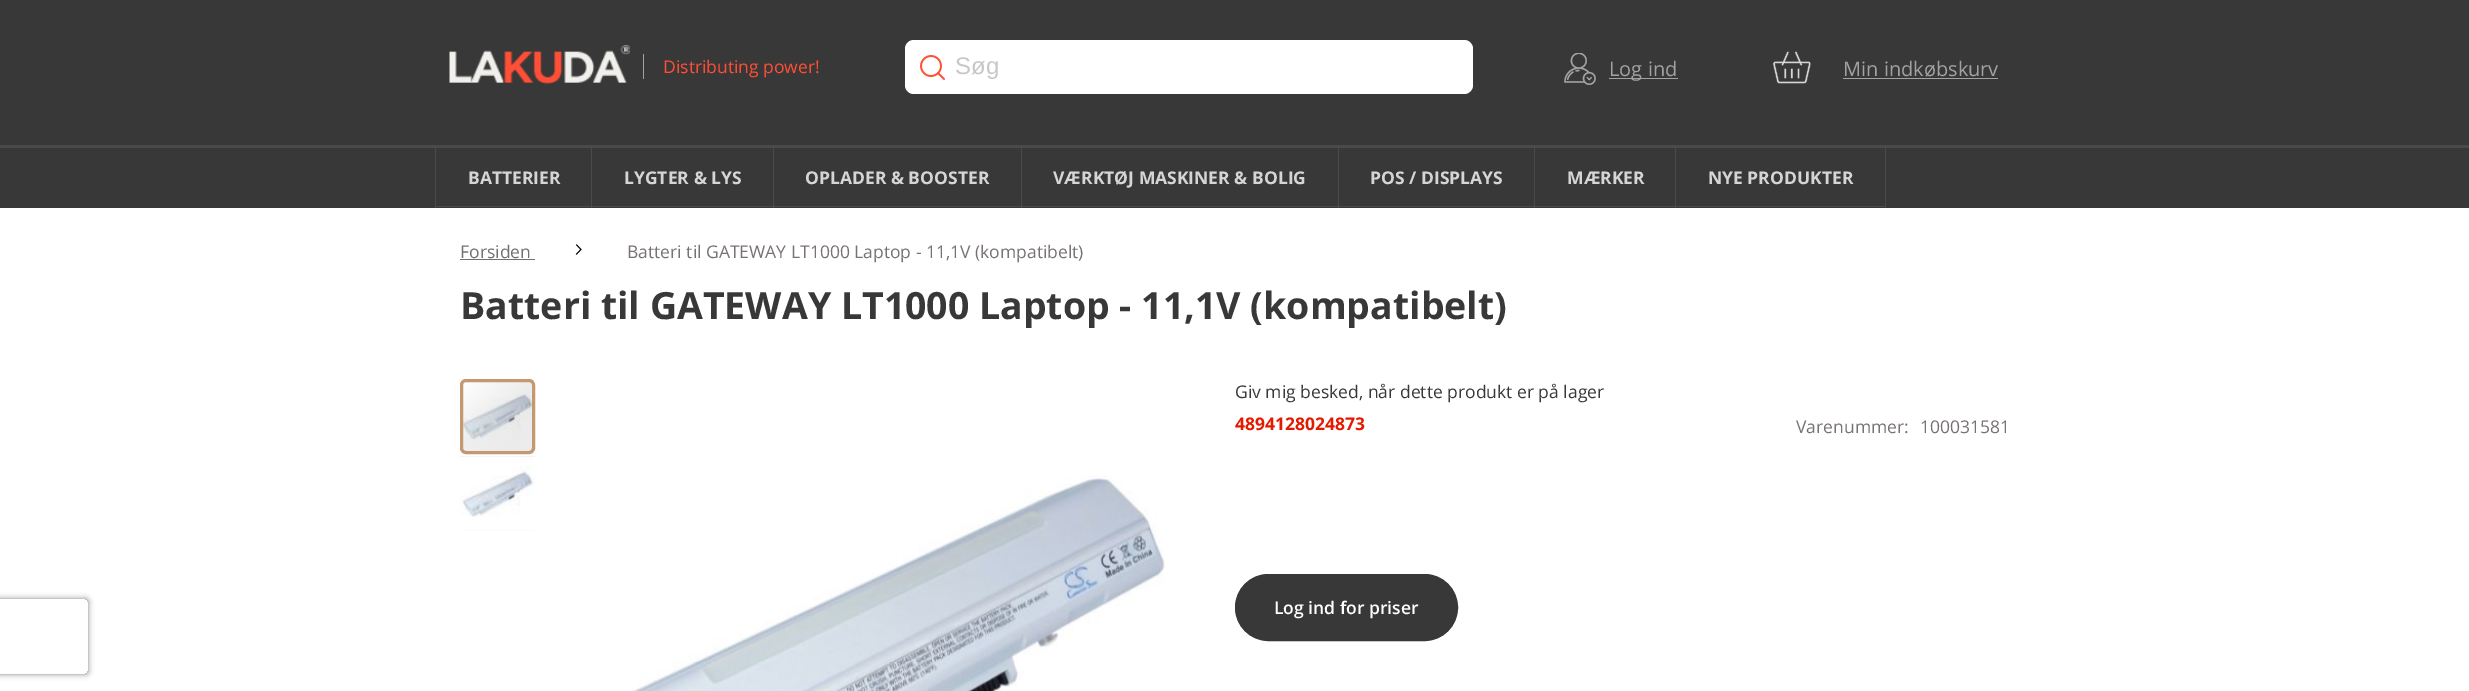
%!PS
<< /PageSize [2469 691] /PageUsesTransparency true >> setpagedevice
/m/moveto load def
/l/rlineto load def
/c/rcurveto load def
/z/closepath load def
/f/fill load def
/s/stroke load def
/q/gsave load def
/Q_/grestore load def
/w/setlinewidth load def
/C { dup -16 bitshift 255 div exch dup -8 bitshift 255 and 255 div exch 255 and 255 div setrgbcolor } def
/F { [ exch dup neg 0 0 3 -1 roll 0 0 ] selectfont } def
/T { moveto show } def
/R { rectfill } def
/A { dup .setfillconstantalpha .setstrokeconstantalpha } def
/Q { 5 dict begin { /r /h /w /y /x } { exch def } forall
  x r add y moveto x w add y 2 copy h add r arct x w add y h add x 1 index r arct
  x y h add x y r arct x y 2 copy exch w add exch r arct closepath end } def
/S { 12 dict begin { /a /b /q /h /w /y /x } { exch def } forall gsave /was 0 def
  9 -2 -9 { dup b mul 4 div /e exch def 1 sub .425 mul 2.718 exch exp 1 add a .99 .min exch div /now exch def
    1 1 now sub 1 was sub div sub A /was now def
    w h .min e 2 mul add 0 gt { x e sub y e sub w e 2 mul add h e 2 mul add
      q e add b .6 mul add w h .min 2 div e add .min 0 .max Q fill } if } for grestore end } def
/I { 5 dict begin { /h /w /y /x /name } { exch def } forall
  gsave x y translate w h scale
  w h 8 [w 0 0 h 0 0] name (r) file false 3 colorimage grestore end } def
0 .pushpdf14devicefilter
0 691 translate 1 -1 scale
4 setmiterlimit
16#FFFFFF C
0 0 2469 691 R
16#393838 C
0 0 2469 145 R
16#4B4A4A C
0 145 2469 3 R
(1.rgb) 449 45 181 39 I
16#A2A2A2 C
643 54 1 25 R
/OpenSans-Regular 17.5 F
16#FF4E36 C
(Distributing power!) 663 73 T
16#FFFFFF C
905 40 568 54 9 Q f
(2.rgb) 920 55 25 25 I
/LiberationSans-Regular 24 F
16#C7C7C7 C
(Søg) 955 74 T
(3.rgb) 1564 53 32 32 I
16#A2A2A2 C
1609 78 69 1 R
/OpenSans-Regular 20 F
(Log ind) 1609 76 T
(4.rgb) 1773 51 38 33 I
(Min indkøbskurv) 1843 76 T
1843 78 155 1 R
16#393838 C
0 148 2469 60 R
16#4B4A4A C
435 148 1 60 R
591 148 1 60 R
436 206 157 1 R
/OpenSans-Bold 17.5 F
16#D5D5D5 C
(BATTERIER) 468 184 T
16#4B4A4A C
773 148 1 60 R
593 206 181 1 R
16#D5D5D5 C
(LYGTER & LYS) 624 184 T
16#4B4A4A C
1021 148 1 60 R
774 206 249 1 R
16#D5D5D5 C
(OPLADER & BOOSTER) 805 184 T
16#4B4A4A C
1338 148 1 60 R
1023 206 316 1 R
16#D5D5D5 C
(VÆRKTØJ MASKINER & BOLIG) 1053 184 T
16#4B4A4A C
1534 148 1 60 R
1339 206 196 1 R
16#D5D5D5 C
(POS / DISPLAYS) 1370 184 T
16#4B4A4A C
1675 148 1 60 R
1535 206 141 1 R
16#D5D5D5 C
(MÆRKER) 1567 184 T
16#4B4A4A C
1885 148 1 60 R
1676 206 210 1 R
16#D5D5D5 C
(NYE PRODUKTER) 1708 184 T
/OpenSans-Regular 17.5 F
16#707070 C
(Forsiden) 460 258 T
460 259 75 1 R
(5.rgb) 575 244 7 11 I
16#787272 C
(Batteri til GATEWAY LT1000 Laptop - 11,1V \(kompatibelt\)) 627 258 T
/OpenSans-Bold 37.5 F
16#393838 C
(Batteri til GATEWAY LT1000 Laptop - 11,1V \(kompatibelt\)) 460 319 T
(6.rgb) 460 379 75 75 I
16#C49870 C
3 w
461.5 380.5 72 72 4.5 Q s
16#EBEBEB C
460 456 75 75 R
(7.rgb) 460 456 75 75 I
(8.rgb) 631 475 534 216 I
/OpenSans-Regular 17.5 F
16#393838 C
(Giv mig besked, når dette produkt er på lager) 1235 398 T
/OpenSans-Bold 17.5 F
16#E41A00 C
(4894128024873) 1235 430 T
/OpenSans-Regular 17.5 F
16#787272 C
(Varenummer:) 1796 433 T
(100031581) 1920 433 T
16#393838 C
1235.5 574.5 222 66 33 Q q f Q_
1 w
s
/OpenSans-SemiBold 17.5 F
16#FFFFFF C
(Log ind for priser) 1274 614 T
q
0 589 m 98 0 l 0 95 l -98 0 l z -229.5 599 m 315 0 l 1.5 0 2.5 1 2.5 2.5 c 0 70 l 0 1.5 -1 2.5 -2.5 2.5 c -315 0 l -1.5 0 -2.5 -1 -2.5 -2.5 c 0 -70 l 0 -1.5 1 -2.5 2.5 -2.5 c z eoclip newpath
16#808080 C
-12 599 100 75 2.5 3 1 S
Q_
.poppdf14devicefilter showpage
